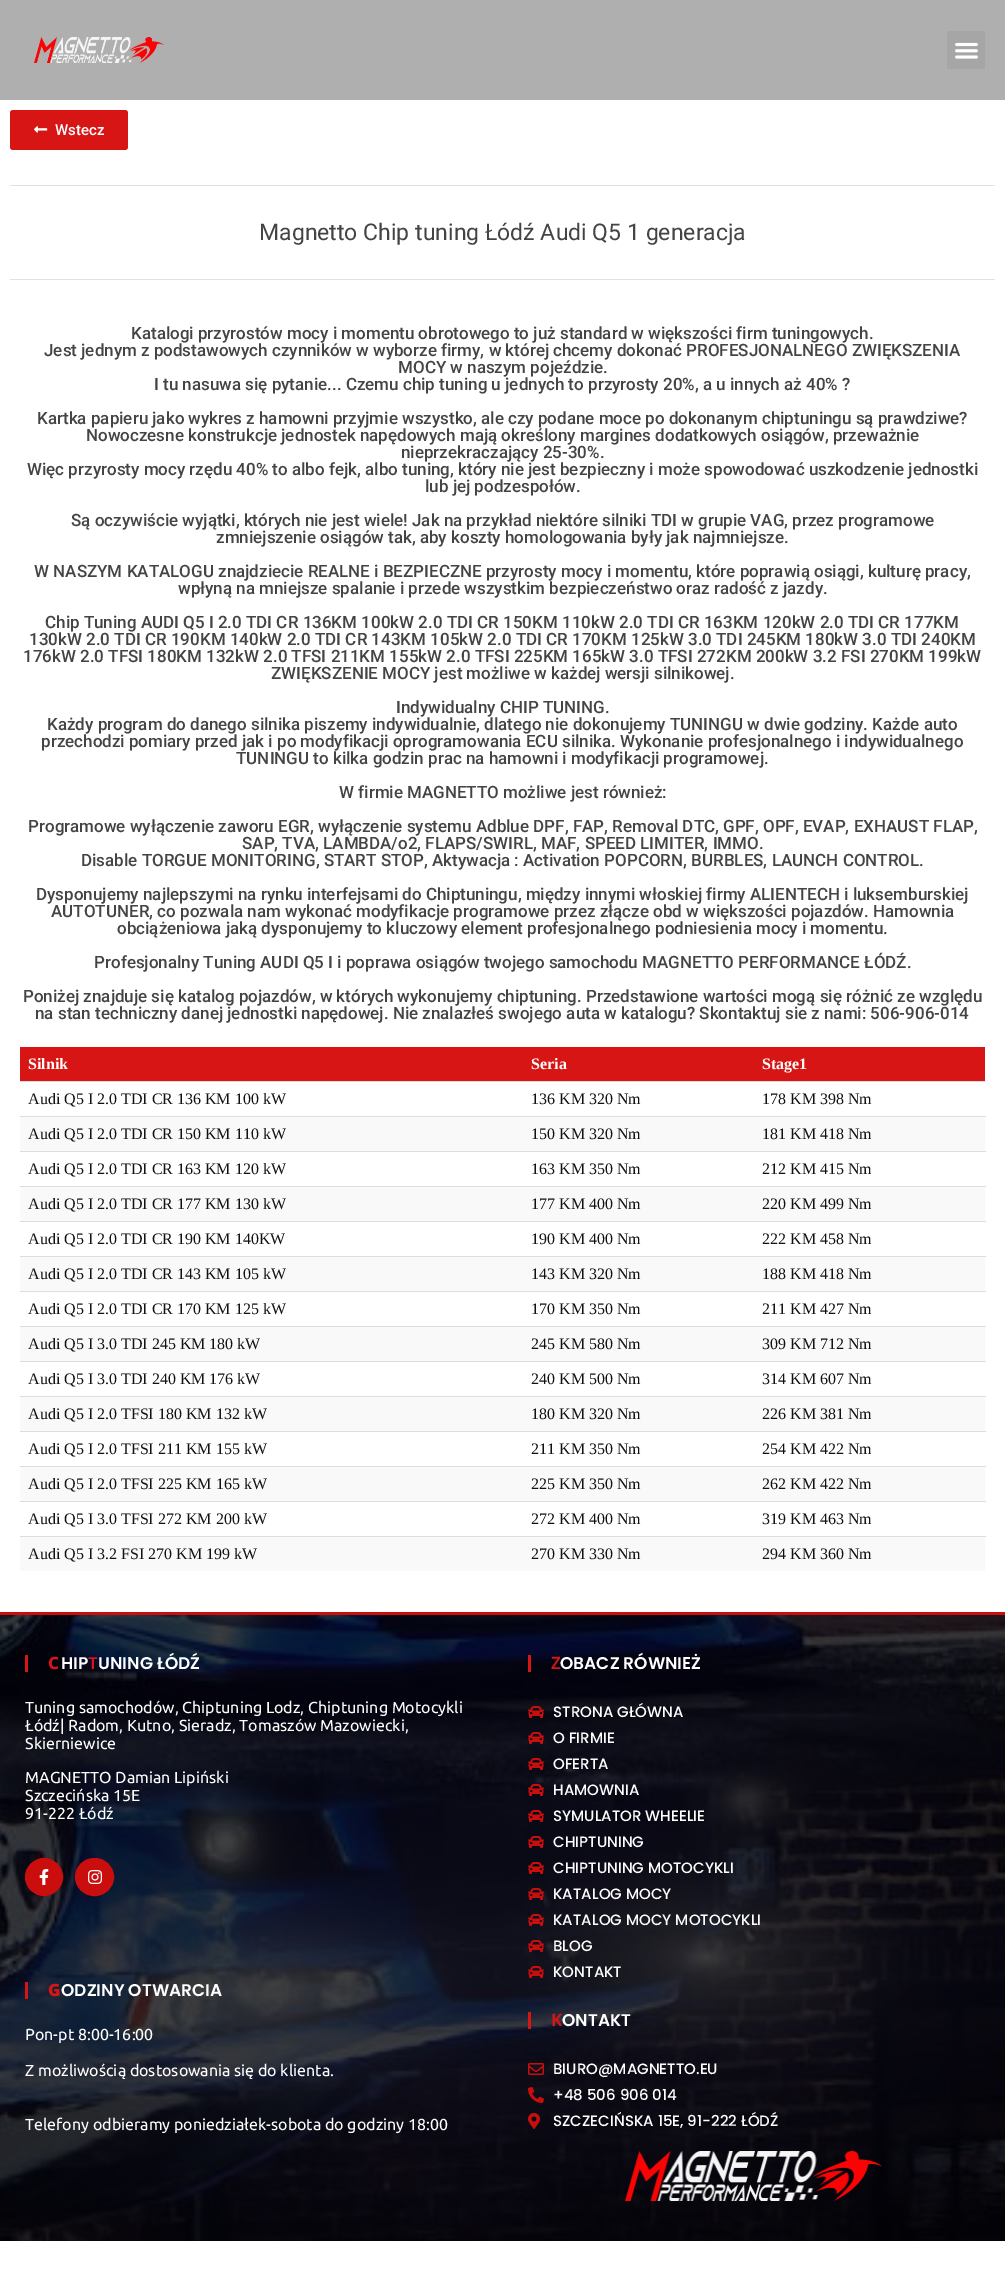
%!PS
<< /PageSize [1005 2291] >> setpagedevice
/f/fill load def
/s/stroke load def
/q/gsave load def
/Q_/grestore load def
/C { dup -16 bitshift 255 div exch dup -8 bitshift 255 and 255 div exch 255 and 255 div setrgbcolor } def
/F { [ exch dup neg 0 0 3 -1 roll 0 0 ] selectfont } def
/T { moveto show } def
/R { rectfill } def
/O { newpath 0 360 arc closepath } def
/Q { 5 dict begin { /r /h /w /y /x } { exch def } forall
  x r add y moveto x w add y 2 copy h add r arct x w add y h add x 1 index r arct
  x y h add x y r arct x y 2 copy exch w add exch r arct closepath end } def
/I { 5 dict begin { /h /w /y /x /name } { exch def } forall
  gsave x y translate w h scale
  w h 8 [w 0 0 h 0 0] name (r) file false 3 colorimage grestore end } def
0 2291 translate 1 -1 scale
4 setmiterlimit
16#FFFFFF C
0 0 1005 2291 R
16#AFAFAF C
0 0 1005 100 R
(1.rgb) 34 37 130 26 I
16#A6A6A6 C
947 31 38 38 R
(2.rgb) 955 42 23 17 I
16#D81515 C
10 110 118 40 3 Q f
(3.rgb) 34 126 14 7 I
/Roboto-Medium 15 F
16#FFFFFF C
(Wstecz) 55 135 T
16#E2E2E2 C
10 185 985 1 R
/Roboto-Regular 23 F
16#444444 C
(Magnetto Chip tuning Łódź Audi Q5 1 generacja) 259 240 T
16#E2E2E2 C
10 279 985 1 R
/Roboto-Medium 17 F
16#444444 C
(Katalogi przyrostów mocy i momentu obrotowego to już standard w większości firm tuningowych.) 131 339 T
(Jest jednym z podstawowych czynników w wyborze firmy, w której chcemy dokonać PROFESJONALNEGO ZWIĘKSZENIA) 44 356 T
(MOCY w naszym pojeździe.) 398 373 T
(I tu nasuwa się pytanie... Czemu chip tuning u jednych to przyrosty 20%, a u innych aż 40% ?) 154 390 T
(Kartka papieru jako wykres z hamowni przyjmie wszystko, ale czy podane moce po dokonanym chiptuningu są prawdziwe?) 37 424 T
(Nowoczesne konstrukcje jednostek napędowych mają określony margines dodatkowych osiągów, przeważnie) 86 441 T
(nieprzekraczający 25-30%.) 401 458 T
(Więc przyrosty mocy rzędu 40% to albo fejk, albo tuning, który nie jest bezpieczny i może spowodować uszkodzenie jednostki) 27 475 T
(lub jej podzespołów.) 425 492 T
(Są oczywiście wyjątki, których nie jest wiele! Jak na przykład niektóre silniki TDI w grupie VAG, przez programowe) 71 526 T
(zmniejszenie osiągów tak, aby koszty homologowania były jak najmniejsze.) 216 543 T
(W NASZYM KATALOGU znajdziecie REALNE i BEZPIECZNE przyrosty mocy i momentu, które poprawią osiągi, kulturę pracy,) 34 577 T
(wpłyną na mniejsze spalanie i przede wszystkim bezpieczeństwo oraz radość z jazdy.) 178 594 T
(Chip Tuning AUDI Q5 I 2.0 TDI CR 136KM 100kW 2.0 TDI CR 150KM 110kW 2.0 TDI CR 163KM 120kW 2.0 TDI CR 177KM) 45 628 T
(130kW 2.0 TDI CR 190KM 140kW 2.0 TDI CR 143KM 105kW 2.0 TDI CR 170KM 125kW 3.0 TDI 245KM 180kW 3.0 TDI 240KM) 29 645 T
(176kW 2.0 TFSI 180KM 132kW 2.0 TFSI 211KM 155kW 2.0 TFSI 225KM 165kW 3.0 TFSI 272KM 200kW 3.2 FSI 270KM 199kW) 23 662 T
(ZWIĘKSZENIE MOCY jest możliwe w każdej wersji silnikowej.) 271 679 T
(Indywidualny CHIP TUNING.) 396 713 T
(Każdy program do danego silnika piszemy indywidualnie, dlatego nie dokonujemy TUNINGU w dwie godziny. Każde auto) 47 730 T
(przechodzi pomiary przed jak i po modyfikacji oprogramowania ECU silnika. Wykonanie profesjonalnego i indywidualnego) 41 747 T
(TUNINGU to kilka godzin prac na hamowni i modyfikacji programowej.) 236 764 T
(W firmie MAGNETTO możliwe jest również:) 339 798 T
(Programowe wyłączenie zaworu EGR, wyłączenie systemu Adblue DPF, FAP, Removal DTC, GPF, OPF, EVAP, EXHAUST FLAP,) 28 832 T
(SAP, TVA, LAMBDA/o2, FLAPS/SWIRL, MAF, SPEED LIMITER, IMMO.) 242 849 T
(Disable TORGUE MONITORING, START STOP, Aktywacja : Activation POPCORN, BURBLES, LAUNCH CONTROL.) 81 866 T
(Dysponujemy najlepszymi na rynku interfejsami do Chiptuningu, między innymi włoskiej firmy ALIENTECH i luksemburskiej) 36 900 T
(AUTOTUNER, co pozwala nam wykonać modyfikacje programowe przez złącze obd w większości pojazdów. Hamownia) 51 917 T
(obciążeniowa jaką dysponujemy to kluczowy element profesjonalnego podniesienia mocy i momentu.) 117 934 T
(Profesjonalny Tuning AUDI Q5 I i poprawa osiągów twojego samochodu MAGNETTO PERFORMANCE ŁÓDŹ.) 94 968 T
(Poniżej znajduje się katalog pojazdów, w których wykonujemy chiptuning. Przedstawione wartości mogą się różnić ze względu) 23 1002 T
(na stan techniczny danej jednostki napędowej. Nie znalazłeś swojego auta w katalogu? Skontaktuj sie z nami: 506-906-014) 35 1019 T
16#D81515 C
20 1047 965 34 R
/LiberationSerif-Bold 16 F
16#FFFFFF C
(Silnik) 28 1069 T
(Seria) 531 1069 T
(Stage1) 762 1069 T
/LiberationSerif-Regular 16 F
16#111111 C
(Audi Q5 I 2.0 TDI CR 136 KM 100 kW) 28 1104 T
(136 KM 320 Nm) 531 1104 T
16#DDDDDD C
20 1081 966 1 R
16#111111 C
(178 KM 398 Nm) 762 1104 T
16#F9F9F9 C
20 1117 965 34 R
16#111111 C
(Audi Q5 I 2.0 TDI CR 150 KM 110 kW) 28 1139 T
(150 KM 320 Nm) 531 1139 T
16#DDDDDD C
20 1116 966 1 R
16#111111 C
(181 KM 418 Nm) 762 1139 T
(Audi Q5 I 2.0 TDI CR 163 KM 120 kW) 28 1174 T
(163 KM 350 Nm) 531 1174 T
16#DDDDDD C
20 1151 966 1 R
16#111111 C
(212 KM 415 Nm) 762 1174 T
16#F9F9F9 C
20 1187 965 34 R
16#111111 C
(Audi Q5 I 2.0 TDI CR 177 KM 130 kW) 28 1209 T
(177 KM 400 Nm) 531 1209 T
16#DDDDDD C
20 1186 966 1 R
16#111111 C
(220 KM 499 Nm) 762 1209 T
(Audi Q5 I 2.0 TDI CR 190 KM 140KW) 28 1244 T
(190 KM 400 Nm) 531 1244 T
16#DDDDDD C
20 1221 966 1 R
16#111111 C
(222 KM 458 Nm) 762 1244 T
16#F9F9F9 C
20 1257 965 34 R
16#111111 C
(Audi Q5 I 2.0 TDI CR 143 KM 105 kW) 28 1279 T
(143 KM 320 Nm) 531 1279 T
16#DDDDDD C
20 1256 966 1 R
16#111111 C
(188 KM 418 Nm) 762 1279 T
(Audi Q5 I 2.0 TDI CR 170 KM 125 kW) 28 1314 T
(170 KM 350 Nm) 531 1314 T
16#DDDDDD C
20 1291 966 1 R
16#111111 C
(211 KM 427 Nm) 762 1314 T
16#F9F9F9 C
20 1327 965 34 R
16#111111 C
(Audi Q5 I 3.0 TDI 245 KM 180 kW) 28 1349 T
(245 KM 580 Nm) 531 1349 T
16#DDDDDD C
20 1326 966 1 R
16#111111 C
(309 KM 712 Nm) 762 1349 T
(Audi Q5 I 3.0 TDI 240 KM 176 kW) 28 1384 T
(240 KM 500 Nm) 531 1384 T
16#DDDDDD C
20 1361 966 1 R
16#111111 C
(314 KM 607 Nm) 762 1384 T
16#F9F9F9 C
20 1397 965 34 R
16#111111 C
(Audi Q5 I 2.0 TFSI 180 KM 132 kW) 28 1419 T
(180 KM 320 Nm) 531 1419 T
16#DDDDDD C
20 1396 966 1 R
16#111111 C
(226 KM 381 Nm) 762 1419 T
(Audi Q5 I 2.0 TFSI 211 KM 155 kW) 28 1454 T
(211 KM 350 Nm) 531 1454 T
16#DDDDDD C
20 1431 966 1 R
16#111111 C
(254 KM 422 Nm) 762 1454 T
16#F9F9F9 C
20 1467 965 34 R
16#111111 C
(Audi Q5 I 2.0 TFSI 225 KM 165 kW) 28 1489 T
(225 KM 350 Nm) 531 1489 T
16#DDDDDD C
20 1466 966 1 R
16#111111 C
(262 KM 422 Nm) 762 1489 T
(Audi Q5 I 3.0 TFSI 272 KM 200 kW) 28 1524 T
(272 KM 400 Nm) 531 1524 T
16#DDDDDD C
20 1501 966 1 R
16#111111 C
(319 KM 463 Nm) 762 1524 T
16#F9F9F9 C
20 1537 965 34 R
16#111111 C
(Audi Q5 I 3.2 FSI 270 KM 199 kW) 28 1559 T
(270 KM 330 Nm) 531 1559 T
16#DDDDDD C
20 1536 966 1 R
16#111111 C
(294 KM 360 Nm) 762 1559 T
(4.rgb) 0 1615 1005 626 I
16#CA0D0D C
0 1612 1005 3 R
16#D81515 C
25 1655 3 17 R
/NotoSans-ExtraBold 17 F
(C) 48 1669 T
/Poppins-SemiBold 17 F
16#FFFFFF C
(HIP) 61 1669 T
16#D81515 C
(T) 88 1669 T
16#FFFFFF C
(UNING ŁÓDŹ) 98 1669 T
/Ubuntu-Regular 16 F
(Tuning samochodów, Chiptuning Lodz, Chiptuning Motocykli) 25 1713 T
(Łódź| Radom, Kutno, Sieradz, Tomaszów Mazowiecki,) 25 1731 T
(Skierniewice) 25 1749 T
(MAGNETTO Damian Lipiński) 25 1783 T
(Szczecińska 15E) 25 1801 T
(91-222 Łódź) 25 1819 T
16#CA0D0D C
44 1877 18.5 O q f Q_
s
(5.rgb) 39 1869 10 16 I
75.5 1858.5 38 37 18.5 Q q f Q_
s
(6.rgb) 88 1870 14 14 I
16#D81515 C
528 1655 3 17 R
/NotoSans-SemiBold 17 F
(Z) 551 1669 T
/Poppins-SemiBold 17 F
16#FFFFFF C
(OBACZ RÓWNIEŻ) 560 1669 T
(7.rgb) 528 1706 16 12 I
/Poppins-Medium 15 F
(STRONA GŁÓWNA) 553 1717 T
(8.rgb) 528 1732 16 12 I
(O FIRMIE) 553 1743 T
(9.rgb) 528 1758 16 12 I
(OFERTA) 553 1769 T
(10.rgb) 528 1784 16 12 I
(HAMOWNIA) 553 1795 T
(11.rgb) 528 1810 16 12 I
(SYMULATOR WHEELIE) 553 1821 T
(12.rgb) 528 1836 16 12 I
(CHIPTUNING) 553 1847 T
(13.rgb) 528 1862 16 12 I
(CHIPTUNING MOTOCYKLI) 553 1873 T
(14.rgb) 528 1888 16 12 I
(KATALOG MOCY) 553 1899 T
(15.rgb) 528 1914 16 12 I
(KATALOG MOCY MOTOCYKLI) 553 1925 T
(16.rgb) 528 1940 16 12 I
(BLOG) 553 1951 T
(17.rgb) 528 1966 16 12 I
(KONTAKT) 553 1977 T
16#D81515 C
25 1982 3 17 R
/NotoSans-Black 17 F
(G) 48 1996 T
/Poppins-SemiBold 17 F
16#FFFFFF C
(ODZINY OTWARCIA) 61 1996 T
/Ubuntu-Regular 16 F
(Pon-pt 8:00-16:00) 25 2040 T
(Z możliwością dostosowania się do klienta.) 25 2076 T
(Telefony odbieramy poniedziałek-sobota do godziny 18:00) 25 2130 T
16#D81515 C
528 2012 3 17 R
/NotoSans-Bold 17 F
(K) 551 2026 T
/Poppins-SemiBold 17 F
16#FFFFFF C
(ONTAKT) 562 2026 T
(18.rgb) 528 2063 16 12 I
/Poppins-Medium 15 F
(BIURO@MAGNETTO.EU) 553 2074 T
(19.rgb) 528 2087 16 16 I
(+48 506 906 014) 553 2100 T
(20.rgb) 528 2113 12 16 I
(SZCZECIŃSKA 15E, 91-222 ŁÓDŹ) 553 2126 T
(21.rgb) 625 2151 257 50 I
showpage
